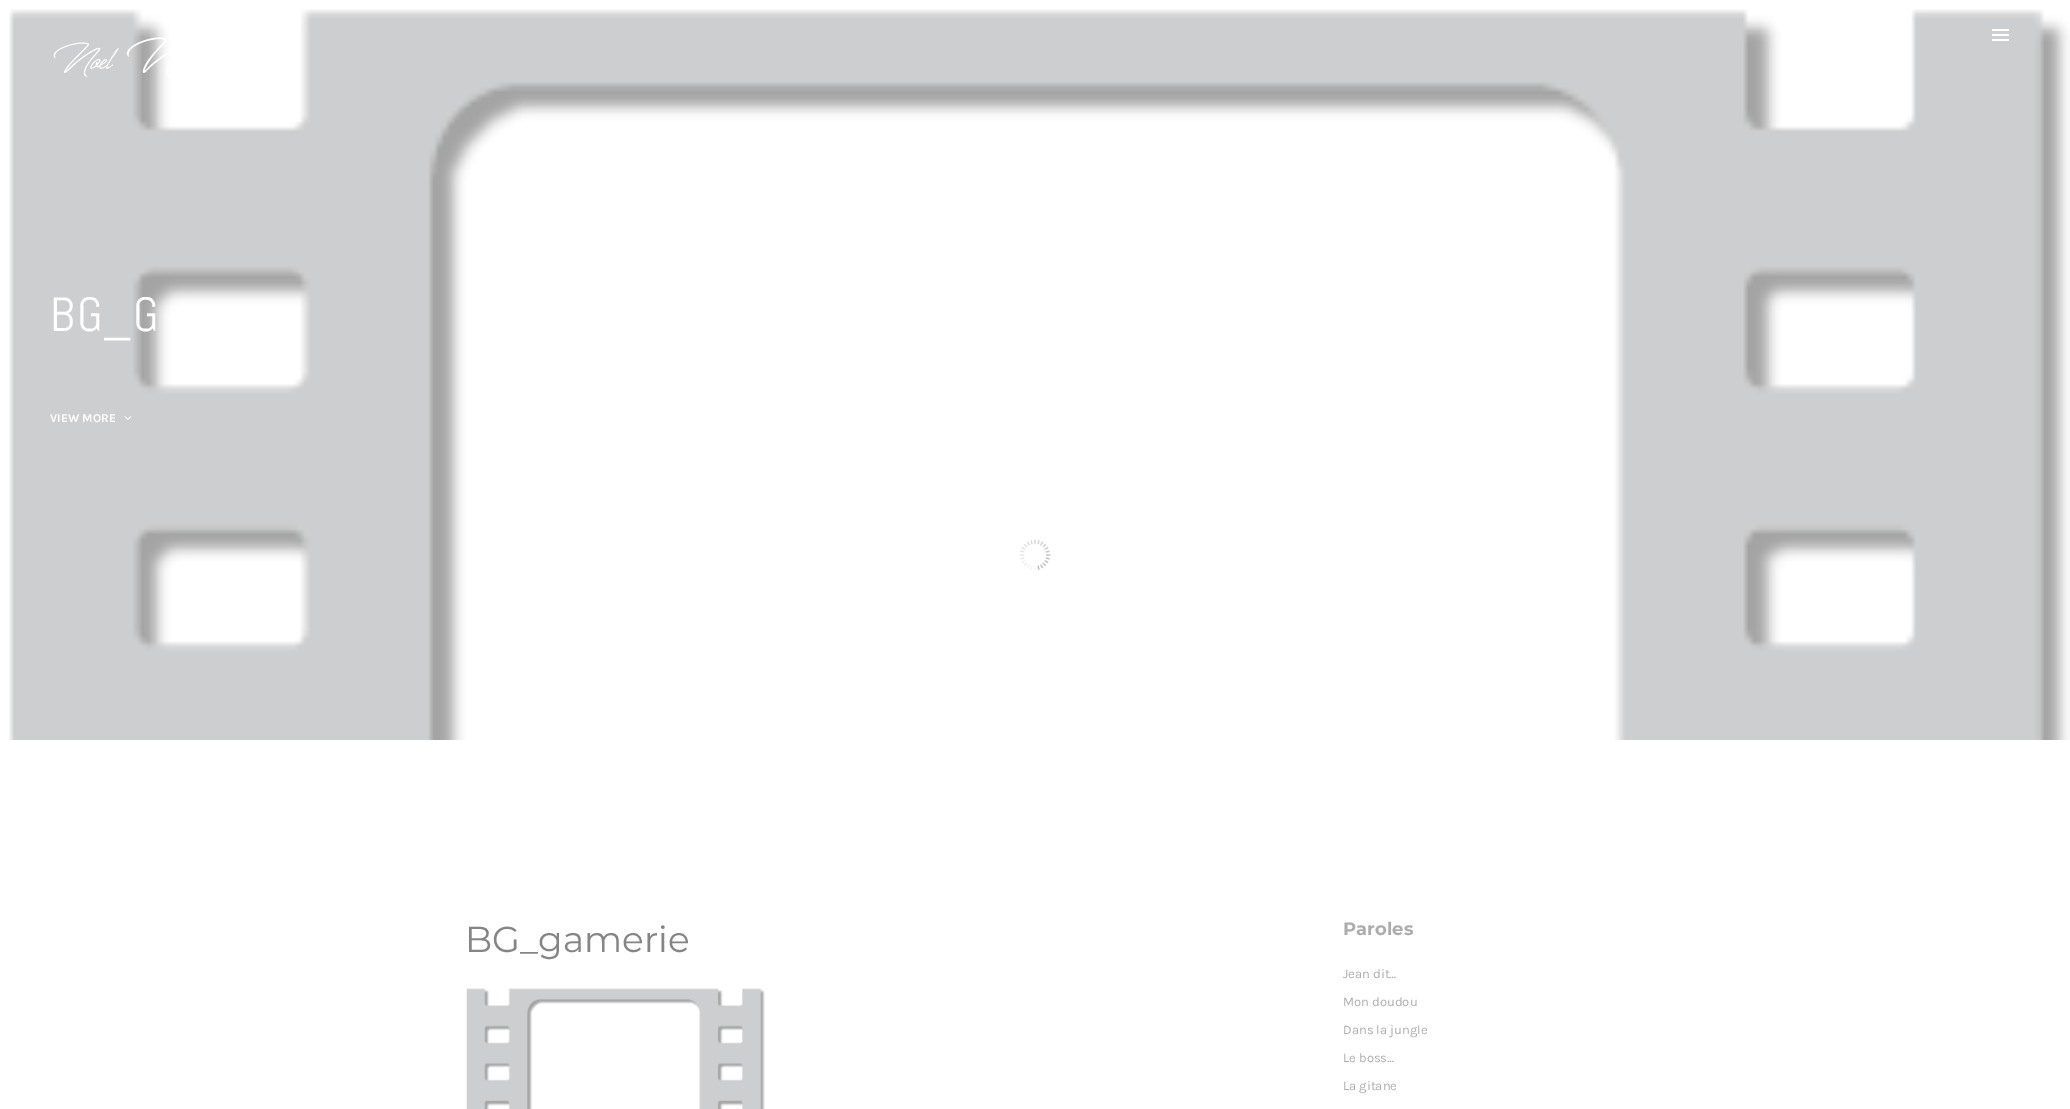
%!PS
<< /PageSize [2070 1109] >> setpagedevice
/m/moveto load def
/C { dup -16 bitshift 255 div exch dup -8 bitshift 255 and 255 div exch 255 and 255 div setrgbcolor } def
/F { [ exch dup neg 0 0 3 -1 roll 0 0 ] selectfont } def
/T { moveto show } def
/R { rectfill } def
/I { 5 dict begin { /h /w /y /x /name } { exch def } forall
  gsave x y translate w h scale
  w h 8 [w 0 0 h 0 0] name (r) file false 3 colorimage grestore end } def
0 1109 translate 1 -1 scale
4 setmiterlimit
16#FFFFFF C
0 0 2070 1109 R
(2.rgb) 9 9 2061 731 I
1992 29 17 2 R
1992 34 17 2 R
1992 39 17 2 R
(1.rgb) 53 37 117 41 I
/Abel-Regular 48 F
50 331 m 2 0 (BG_G) ashow
/Karla-Bold 12 F
(VIEW MORE) 50 422 T
(3.rgb) 124 416 8 4 I
/Montserrat-Thin 36 F
16#858585 C
(BG_gamerie) 465 952 T
(4.rgb) 466 988 299 121 I
/Montserrat-Bold 18 F
16#ACACAC C
(Paroles) 1343 935 T
/Karla-Regular 13 F
(Jean dit…) 1343 978 T
(Mon doudou) 1343 1006 T
(Dans la jungle) 1343 1034 T
(Le boss…) 1343 1062 T
(La gitane) 1343 1090 T
(5.rgb) 1019 539 32 31 I
showpage
